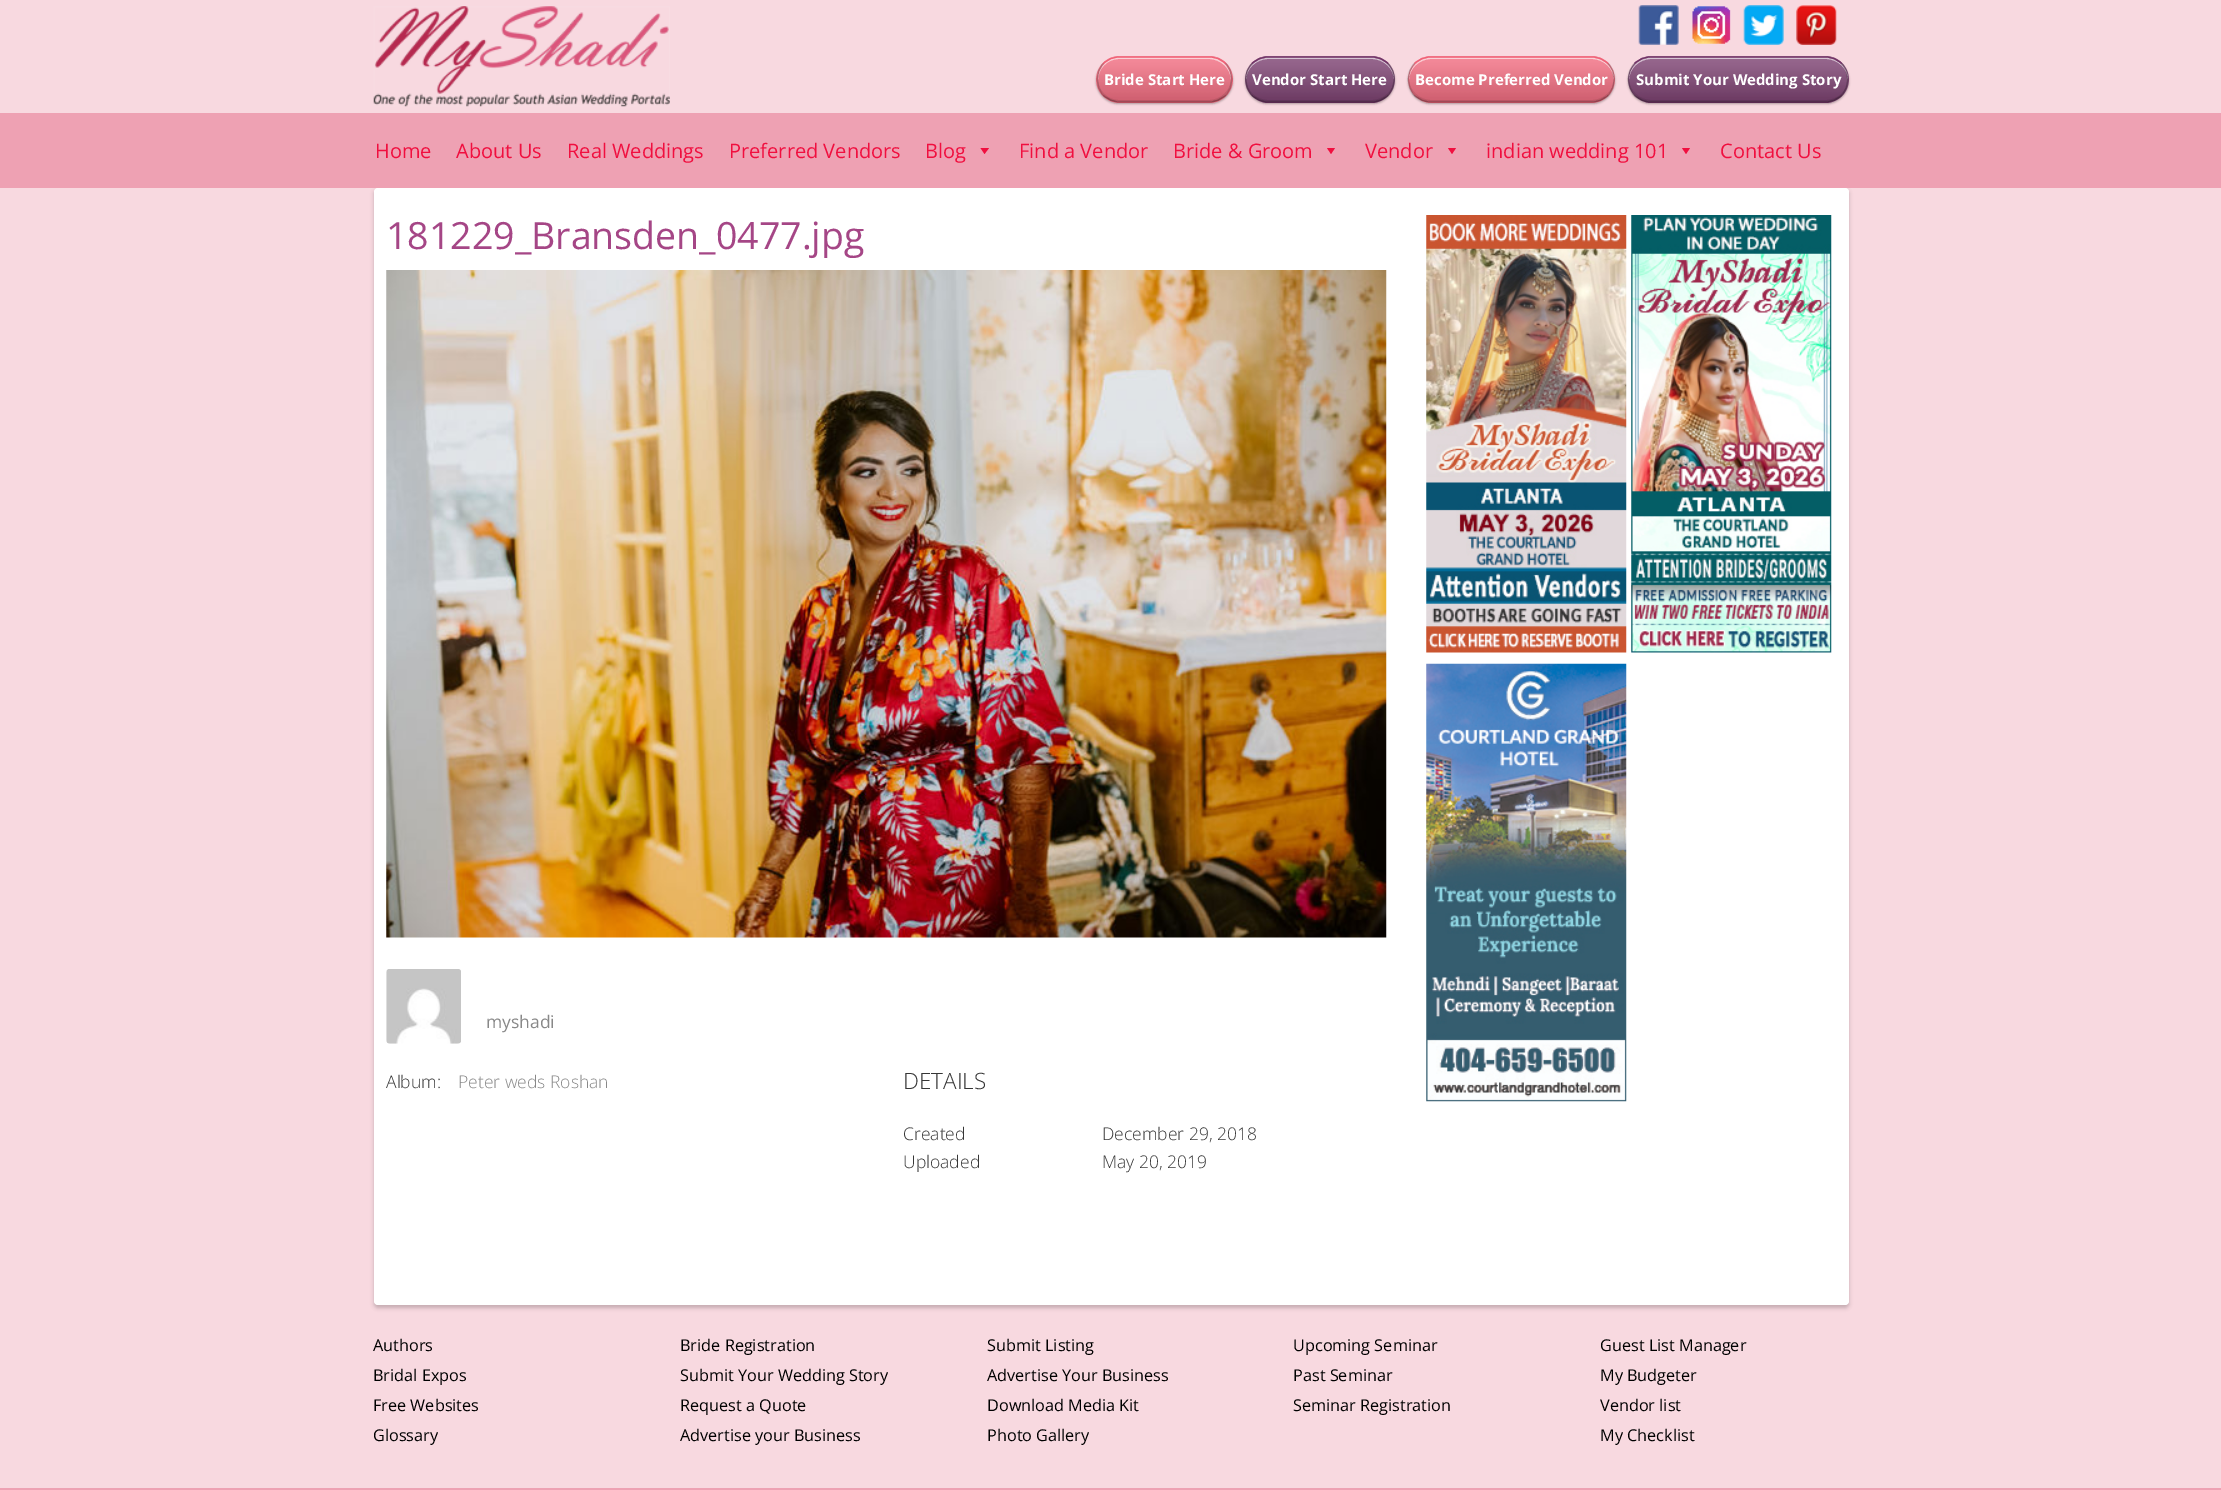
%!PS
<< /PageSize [2221 1490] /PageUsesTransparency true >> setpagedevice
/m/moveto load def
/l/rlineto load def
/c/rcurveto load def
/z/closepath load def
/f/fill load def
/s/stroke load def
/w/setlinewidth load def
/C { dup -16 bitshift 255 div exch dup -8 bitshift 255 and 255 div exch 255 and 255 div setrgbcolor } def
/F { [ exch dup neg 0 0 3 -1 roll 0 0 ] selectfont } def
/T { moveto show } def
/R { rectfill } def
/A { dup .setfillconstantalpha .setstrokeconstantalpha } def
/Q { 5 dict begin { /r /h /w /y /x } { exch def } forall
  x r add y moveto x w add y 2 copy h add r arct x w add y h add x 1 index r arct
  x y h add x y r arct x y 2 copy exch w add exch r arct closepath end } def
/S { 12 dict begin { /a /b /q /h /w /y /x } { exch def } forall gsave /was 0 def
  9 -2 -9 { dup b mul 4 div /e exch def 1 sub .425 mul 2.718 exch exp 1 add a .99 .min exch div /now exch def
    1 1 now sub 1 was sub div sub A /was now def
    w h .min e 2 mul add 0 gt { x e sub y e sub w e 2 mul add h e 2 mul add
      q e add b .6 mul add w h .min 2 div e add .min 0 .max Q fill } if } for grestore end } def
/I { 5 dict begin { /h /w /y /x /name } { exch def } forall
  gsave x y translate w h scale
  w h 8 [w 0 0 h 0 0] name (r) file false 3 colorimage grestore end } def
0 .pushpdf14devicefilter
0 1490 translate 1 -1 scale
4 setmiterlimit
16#F8D9E0 C
0 0 2221 1490 R
(1.rgb) 373 6 297 101 I
(2.rgb) 1638 5 41 40 I
(3.rgb) 1692 6 39 38 I
(4.rgb) 1743 5 41 40 I
(5.rgb) 1796 5 41 40 I
16#000000 C
1096 58 137 46 23 1 .3 S
16#F06277 C
1096 56 137 47 23.5 Q f
(6.rgb) 1096 56 137 47 I
0.1 A
16#000000 C
1098 79 m 0 10 7 20 17 22 c 19 0 l 80 0 l 10 -2 17 -12 17 -22 c 0 11 -10 21 -22 21 c -90 0 l -12 0 -21 -10 -21 -21 c z f
0.6 A
16#FFFFFF C
1119 59 m 90 0 l 12 0 22 10 22 21 c 0 -10 -7 -20 -17 -22 c -20 0 l -79 0 l -10 2 -17 12 -17 22 c 0 -11 9 -21 21 -21 c z f
1 A
16#F06277 C
1.2 w
1103.5 63.5 m 4 -4.5 10 -6.5 16 -6.5 c 90 0 l 6 0 11.5 2 16 6.5 c s
0.2 A
16#000000 C
1225.5 63.5 m 8.5 8.5 8.5 23 0 32 c s
0.3 A
1225.5 95.5 m -4.5 4 -10 6.5 -16 6.5 c -90 0 l -6 0 -12 -2.5 -16 -6.5 c s
0.2 A
1103.5 95.5 m -8.5 -9 -8.5 -23.5 0 -32 c s
/OpenSans-Bold 15 F
1 A
16#FFFFFF C
(Bride Start Here) 1104 85 T
16#000000 C
1245 58 150 46 23 1 .3 S
16#733467 C
1245 56 150 47 23.5 Q f
(7.rgb) 1245 56 150 46 I
0.1 A
16#000000 C
1246 79 m 0 1 l 0 11 10 21 22 21 c 104 0 l 12 0 22 -10 22 -21 c 0 -1 l 0 11 -10 21 -22 21 c -104 0 l -12 0 -22 -10 -22 -21 c z f
0.6 A
16#FFFFFF C
1268 59 m 104 0 l 12 0 22 10 22 21 c 0 -12 -10 -22 -22 -22 c -104 0 l -12 0 -22 10 -22 22 c 0 -11 10 -21 22 -21 c z f
1 A
16#733467 C
1252 63.5 m 4.5 -4.5 10 -6.5 16 -6.5 c 104 0 l 6 0 11.5 2 16 6.5 c s
0.2 A
16#000000 C
1388 63.5 m 8.5 8.5 8.5 23 0 32 c s
0.3 A
1388 95.5 m -4.5 4 -10 6.5 -16 6.5 c -104 0 l -6 0 -11.5 -2.5 -16 -6.5 c s
0.2 A
1252 95.5 m -8.5 -9 -8.5 -23.5 0 -32 c s
1 A
16#FFFFFF C
(Vendor Start Here) 1252 85 T
16#000000 C
1408 58 207 46 23 1 .3 S
16#F06277 C
1408 56 207 47 23.5 Q f
(8.rgb) 1408 56 207 47 I
0.1 A
16#000000 C
1409 79 m 0 1 l 0 11 10 21 21 21 c 162 0 l 12 0 22 -10 22 -21 c 0 -1 l 0 11 -10 21 -22 21 c -161 0 l -12 0 -22 -10 -22 -21 c z f
0.6 A
16#FFFFFF C
1431 59 m 161 0 l 12 0 22 10 22 21 c 0 -12 -10 -22 -22 -22 c -162 0 l -11 0 -21 10 -21 22 c 0 -11 10 -21 22 -21 c z f
1 A
16#F06277 C
1414.5 63.5 m 4.5 -4.5 10 -6.5 16 -6.5 c 161.5 0 l 6 0 11.5 2 16 6.5 c s
0.2 A
16#000000 C
1608 63.5 m 8.5 8.5 8.5 23 0 32 c s
0.3 A
1608 95.5 m -4.5 4 -10 6.5 -16 6.5 c -161.5 0 l -6 0 -11.5 -2.5 -16 -6.5 c s
0.2 A
1414.5 95.5 m -8.5 -9 -8.5 -23.5 0 -32 c s
1 A
16#FFFFFF C
(Become Preferred Vendor) 1415 85 T
16#000000 C
1628 58 221 46 23 1 .3 S
16#733467 C
1628 56 221 47 23.5 Q f
(9.rgb) 1628 56 221 46 I
0.1 A
16#000000 C
1629 79 m 0 1 l 0 11 10 21 21 21 c 176 0 l 12 0 22 -10 22 -21 c 0 -1 l 0 11 -10 21 -22 21 c -175 0 l -12 0 -22 -10 -22 -21 c z f
0.6 A
16#FFFFFF C
1651 59 m 175 0 l 12 0 22 10 22 21 c 0 -12 -10 -22 -22 -22 c -176 0 l -11 0 -21 10 -21 22 c 0 -11 10 -21 22 -21 c z f
1 A
16#733467 C
1634.5 63.5 m 4.5 -4.5 10 -6.5 16 -6.5 c 175 0 l 6 0 12 2 16 6.5 c s
0.2 A
16#000000 C
1841.5 63.5 m 8.5 8.5 8.5 23 0 32 c s
0.3 A
1841.5 95.5 m -4 4 -10 6.5 -16 6.5 c -175 0 l -6 0 -11.5 -2.5 -16 -6.5 c s
0.2 A
1634.5 95.5 m -8.5 -9 -8.5 -23.5 0 -32 c s
1 A
16#FFFFFF C
(Submit Your Wedding Story) 1636 85 T
16#000000 C
374 190 1475 1118 4 2 .2 S
16#EEA1B3 C
0 113 2221 75 R
/OpenSans-Regular 20 F
16#F00F3F C
(Home) 375 158 T
(About Us) 456 158 T
(Real Weddings) 567 158 T
(Preferred Vendors) 729 158 T
(Blog) 925 158 T
989 148 m -4.5 6 l -4 -6 l z f
(Find a Vendor) 1019 158 T
(Bride & Groom) 1173 158 T
1335 148 m -4 6 l -4 -6 l z f
(Vendor) 1365 158 T
1456 148 m -4 6 l -4 -6 l z f
(indian wedding 101) 1486 158 T
1690 148 m -4 6 l -4 -6 l z f
(Contact Us) 1720 158 T
16#FFFFFF C
374 188 1475 1117 4 Q f
/OpenSans-Regular 37.5 F
16#A54686 C
(181229_Bransden_0477.jpg) 386 249 T
(10.rgb) 386 270 1001 668 I
(11.rgb) 386 969 75 75 I
/OpenSans-Regular 17.5 F
16#888888 C
(myshadi) 486 1028 T
/OpenSans-Light 17.5 F
16#363636 C
(Album:) 386 1088 T
16#888888 C
(Peter weds Roshan) 458 1088 T
/OpenSans-Light 22.5 F
16#363636 C
(DETAILS) 903 1089 T
/OpenSans-Light 17.5 F
(Created) 903 1140 T
(December 29, 2018) 1102 1140 T
(Uploaded) 903 1168 T
(May 20, 2019) 1102 1168 T
(12.rgb) 1426 215 201 438 I
(13.rgb) 1631 215 201 438 I
(14.rgb) 1426 663 201 439 I
/OpenSans-Regular 16.25 F
16#000000 C
(Authors) 373 1351 T
(Bridal Expos) 373 1381 T
(Free Websites) 373 1411 T
(Glossary) 373 1441 T
(Bride Registration) 680 1351 T
(Submit Your Wedding Story) 680 1381 T
(Request a Quote) 680 1411 T
(Advertise your Business) 680 1441 T
(Submit Listing) 987 1351 T
(Advertise Your Business) 987 1381 T
(Download Media Kit) 987 1411 T
(Photo Gallery) 987 1441 T
(Upcoming Seminar) 1293 1351 T
(Past Seminar) 1293 1381 T
(Seminar Registration) 1293 1411 T
(Guest List Manager) 1600 1351 T
(My Budgeter) 1600 1381 T
(Vendor list) 1600 1411 T
(My Checklist) 1600 1441 T
16#EEA1B3 C
0 1488 2221 2 R
.poppdf14devicefilter showpage
